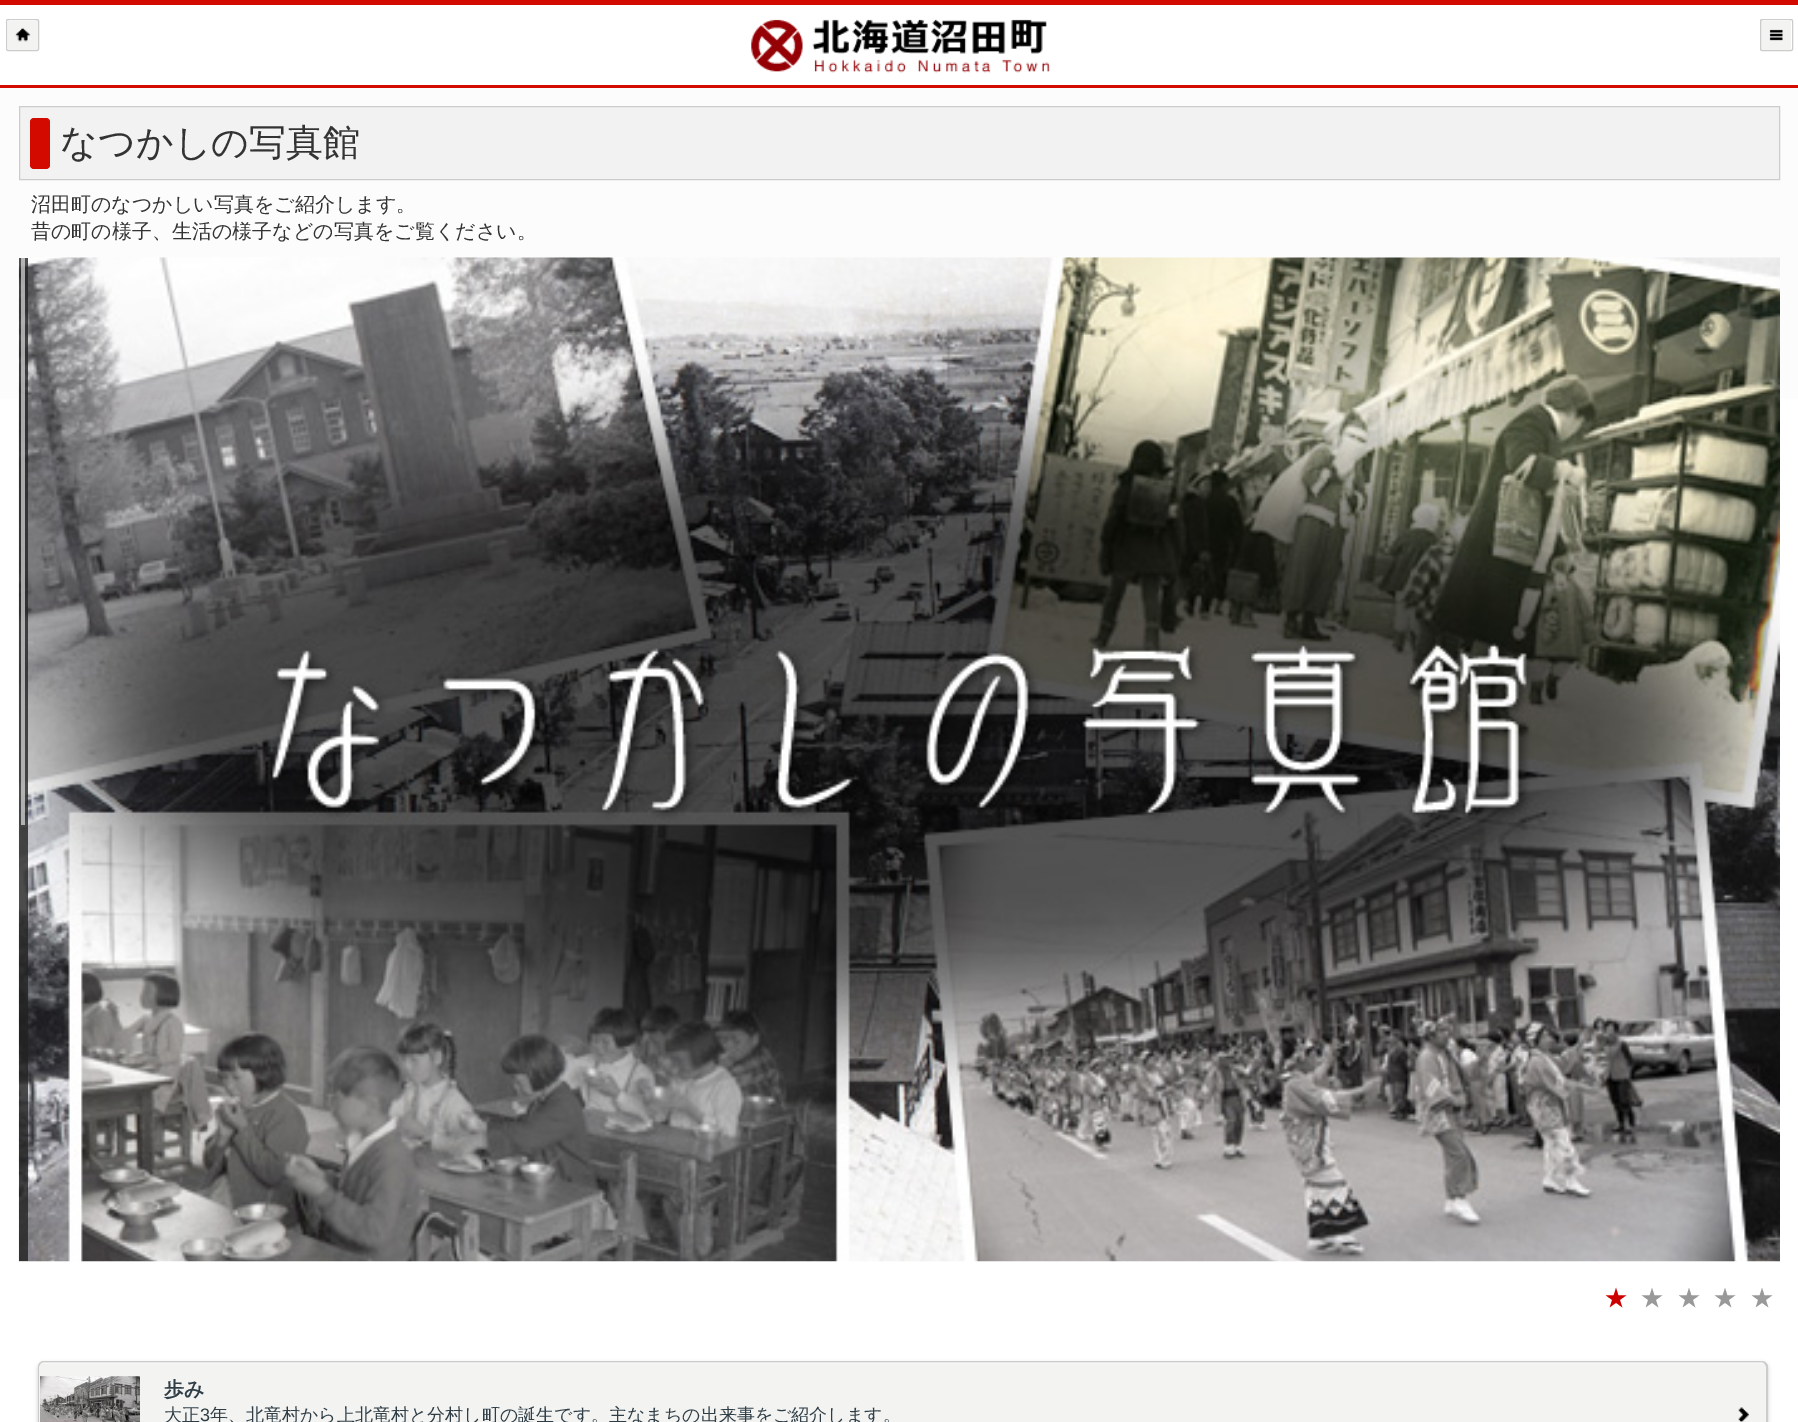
%!PS
<< /PageSize [1798 1422] /PageUsesTransparency true >> setpagedevice
/m/moveto load def
/l/rlineto load def
/c/rcurveto load def
/z/closepath load def
/f/fill load def
/s/stroke load def
/q/gsave load def
/Q_/grestore load def
/C { dup -16 bitshift 255 div exch dup -8 bitshift 255 and 255 div exch 255 and 255 div setrgbcolor } def
/F { [ exch dup neg 0 0 3 -1 roll 0 0 ] selectfont } def
/T { moveto show } def
/R { rectfill } def
/A { dup .setfillconstantalpha .setstrokeconstantalpha } def
/Q { 5 dict begin { /r /h /w /y /x } { exch def } forall
  x r add y moveto x w add y 2 copy h add r arct x w add y h add x 1 index r arct
  x y h add x y r arct x y 2 copy exch w add exch r arct closepath end } def
/S { 12 dict begin { /a /b /q /h /w /y /x } { exch def } forall gsave /was 0 def
  9 -2 -9 { dup b mul 4 div /e exch def 1 sub .425 mul 2.718 exch exp 1 add a .99 .min exch div /now exch def
    1 1 now sub 1 was sub div sub A /was now def
    w h .min e 2 mul add 0 gt { x e sub y e sub w e 2 mul add h e 2 mul add
      q e add b .6 mul add w h .min 2 div e add .min 0 .max Q fill } if } for grestore end } def
/I { 5 dict begin { /h /w /y /x /name } { exch def } forall
  gsave x y translate w h scale
  w h 8 [w 0 0 h 0 0] name (r) file false 3 colorimage grestore end } def
0 .pushpdf14devicefilter
0 1422 translate 1 -1 scale
4 setmiterlimit
16#FFFFFF C
0 0 1798 1422 R
16#D30A00 C
0 0 1798 5 R
0 85 1798 3 R
16#F3F3F2 C
8 20 30 30 .5 Q f
16#CCCCCC C
6.5 19.5 32 31 1.5 Q s
16#F7F7F6 C
9 20 27 1 R
(1.rgb) 15 27 16 15 I
(2.rgb) 751 19 299 54 I
16#F3F3F2 C
1761 20 30 30 .5 Q f
16#CCCCCC C
1760.5 19.5 32 31 1.5 Q s
16#F7F7F6 C
1763 20 27 1 R
(3.rgb) 1769 29 14 12 I
q 0 88 m 1798 0 l 0 311 l -1798 0 l z clip newpath
<< /ShadingType 2 /ColorSpace /DeviceRGB /Coords [899 87 899 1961] /Extend [true true] /Function << /FunctionType 2 /Domain [0 1] /C0 [.988 .988 .988] /C1 [1 1 1] /N 1 >> >> shfill Q_
16#F2F2F2 C
19.5 106.5 m 1760 0 l 0 73 l -1760 0 l z q f Q_
16#CCCCCC C
s
16#D30A00 C
30 118 20 51 4 Q f
/WenQuanYiZenHei-Medium 37 F
16#333333 C
(なつかしの写真館) 60 155 T
/WenQuanYiZenHei-Medium 20 F
(沼田町のなつかしい写真をご紹介します。) 31 211 T
(昔の町の様子、生活の様子などの写真をご覧ください。) 31 238 T
(4.rgb) 18 257 1762 1005 I
0.8 A
16#222222 C
19 258 9 1003 R
0.64 A
16#EEEEEE C
21 258 4 567 R
/WenQuanYiZenHei-Medium 24 F
1 A
16#CC0000 C
(★) 1604 1306 T
16#999999 C
(★) 1640 1306 T
(★) 1677 1306 T
(★) 1713 1306 T
(★) 1750 1306 T
16#000000 C
38 1363 1730 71 6 2 .2 S
16#F3F3F2 C
44 1363 m 1717 0 l 3 0 5 2 5 5 c 0 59 l -1727 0 l 0 -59 l 0 -3 2 -5 5 -5 c z f
16#CCCCCC C
44 1361 m 1718 0 l 3 0 6 3 6 6 c 0 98 l -1730 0 l 0 -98 l 0 -3 2 -6 6 -6 c z 44 1362 m 1718 0 l 2 0 4 3 4 5 c 0 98 l -1727 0 l 0 -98 l 0 -2 2 -5 5 -5 c z eofill
0.3 A
16#FFFFFF C
41 1363 1723 1 R
1 A
(5.rgb) 40 1376 100 46 I
/WenQuanYiZenHei-Bold 20 F
16#2F3E46 C
(歩み) 164 1396 T
/WenQuanYiZenHei-Medium 18 F
(大正) 164 1421 T
/LiberationSans-Regular 18 F
(3) 200 1421 T
/WenQuanYiZenHei-Medium 18 F
(年、北竜村から上北竜村と分村し町の誕生です。主なまちの出来事をご紹介します。) 210 1421 T
(6.rgb) 1738 1407 11 15 I
.poppdf14devicefilter showpage
